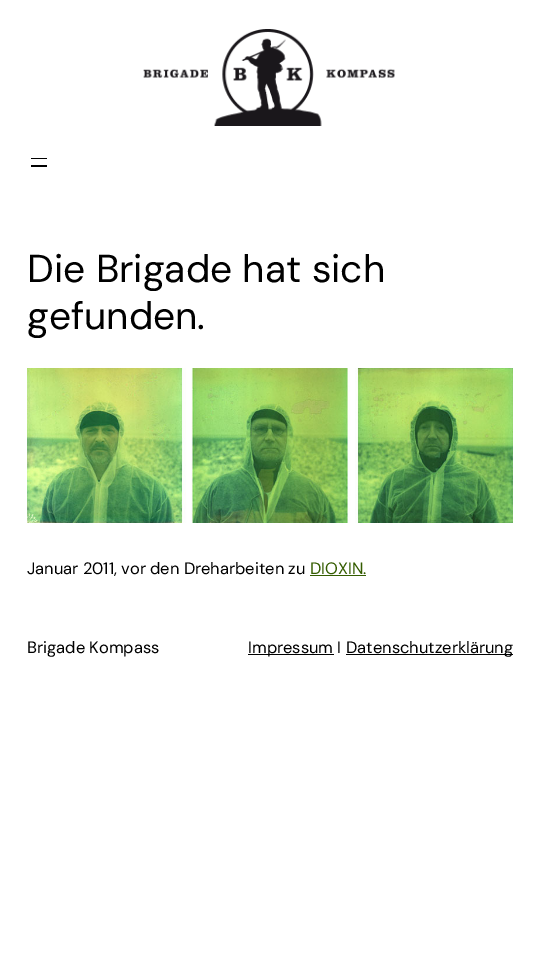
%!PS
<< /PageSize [540 971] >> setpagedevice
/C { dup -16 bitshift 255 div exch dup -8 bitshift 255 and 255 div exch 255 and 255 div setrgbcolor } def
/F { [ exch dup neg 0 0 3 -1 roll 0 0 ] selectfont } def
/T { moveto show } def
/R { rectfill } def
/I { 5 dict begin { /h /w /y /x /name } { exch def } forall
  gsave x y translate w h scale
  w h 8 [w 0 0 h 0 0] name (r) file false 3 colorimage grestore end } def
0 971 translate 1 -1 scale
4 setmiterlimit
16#FFFFFF C
0 0 540 971 R
(1.rgb) 143 29 252 97 I
16#000000 C
31 158 16 1 R
31 165 16 2 R
/DMSans-Regular 38.9 F
(Die Brigade hat sich) 27 282 T
(gefunden.) 27 329 T
(2.rgb) 27 368 486 155 I
/DMSans-Regular 16.5 F
(Januar 2011, vor den Dreharbeiten zu) 27 574 T
16#345C00 C
(DIOXIN.) 310 574 T
310 575 56 1 R
16#000000 C
(Brigade Kompass) 27 653 T
248 654 86 1 R
(Impressum I) 248 653 T
346 654 167 1 R
(Datenschutzerklärung) 346 653 T
showpage
